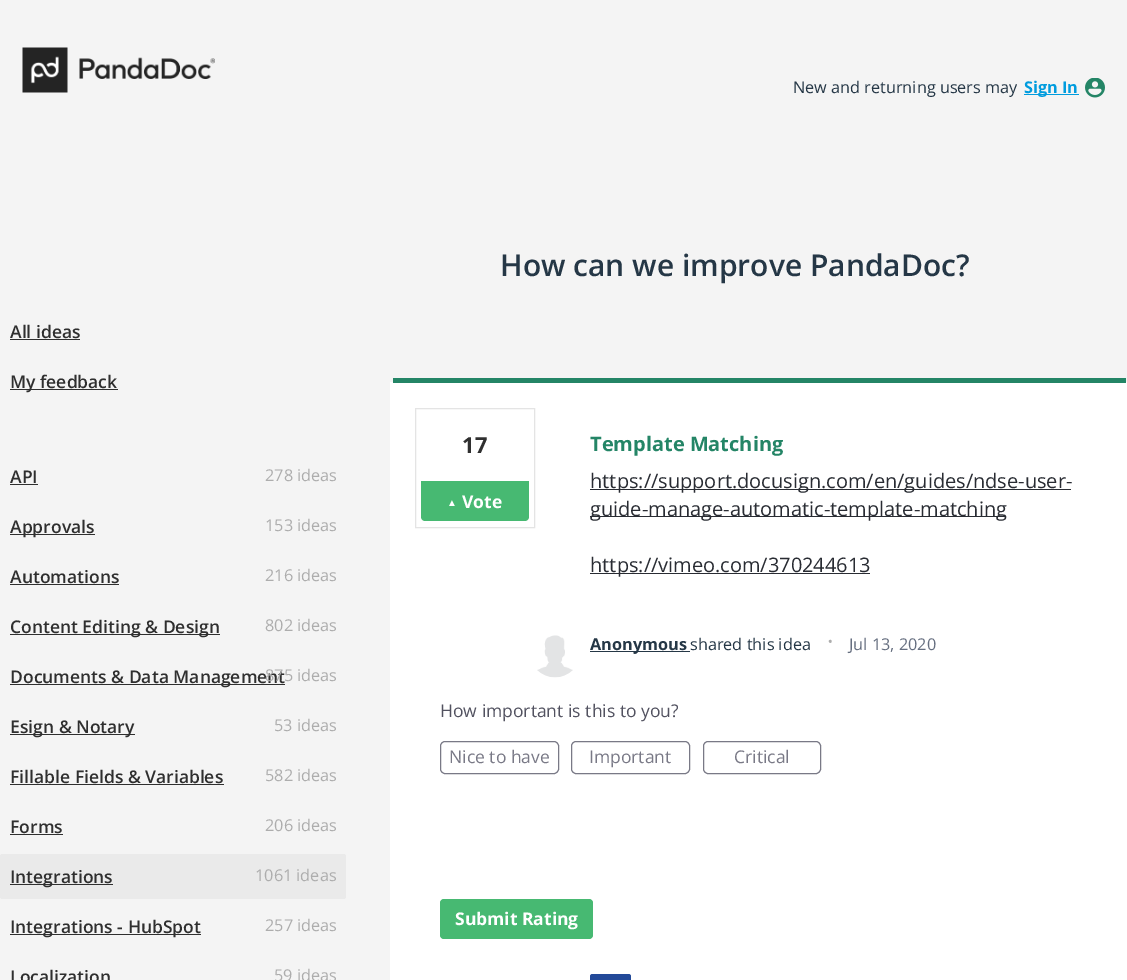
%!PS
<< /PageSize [1127 980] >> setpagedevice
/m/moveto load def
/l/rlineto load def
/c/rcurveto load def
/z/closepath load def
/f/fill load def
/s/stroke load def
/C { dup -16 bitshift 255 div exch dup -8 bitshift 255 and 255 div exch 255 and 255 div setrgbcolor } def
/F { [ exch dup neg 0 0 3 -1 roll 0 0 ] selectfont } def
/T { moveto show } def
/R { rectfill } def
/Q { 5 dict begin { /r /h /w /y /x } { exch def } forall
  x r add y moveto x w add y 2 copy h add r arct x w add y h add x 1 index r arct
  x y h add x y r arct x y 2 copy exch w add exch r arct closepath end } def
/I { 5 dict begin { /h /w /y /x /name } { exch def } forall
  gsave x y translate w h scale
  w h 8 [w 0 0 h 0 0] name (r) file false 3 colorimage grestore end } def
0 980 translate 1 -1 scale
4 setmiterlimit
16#F4F4F4 C
0 0 1127 980 R
(1.rgb) 22 47 193 46 I
/OpenSans-Regular 16.25 F
16#253746 C
(New and returning users may) 793 93 T
16#009CDE C
1024 94 55 1 R
/OpenSans-Bold 16.25 F
(Sign In) 1024 93 T
(2.rgb) 1085 78 20 20 I
/OpenSans-SemiBold 30 F
16#253746 C
(How can we improve PandaDoc?) 500 276 T
/OpenSans-SemiBold 17.5 F
16#2F2F2F C
(All ideas) 10 338 T
10 339 70 1 R
10 389 108 1 R
(My feedback) 10 388 T
(API) 10 483 T
10 484 28 1 R
/OpenSans-Regular 16.25 F
16#ADADAD C
(278 ideas) 265 481 T
16#2F2F2F C
10 534 85 1 R
/OpenSans-SemiBold 17.5 F
(Approvals) 10 533 T
/OpenSans-Regular 16.25 F
16#ADADAD C
(153 ideas) 265 531 T
/OpenSans-SemiBold 17.5 F
16#2F2F2F C
(Automations) 10 583 T
10 584 109 1 R
/OpenSans-Regular 16.25 F
16#ADADAD C
(216 ideas) 265 581 T
16#2F2F2F C
10 634 210 1 R
/OpenSans-SemiBold 17.5 F
(Content Editing & Design) 10 633 T
/OpenSans-Regular 16.25 F
16#ADADAD C
(802 ideas) 265 631 T
16#2F2F2F C
10 684 275 1 R
/OpenSans-SemiBold 17.5 F
(Documents & Data Management) 10 683 T
/OpenSans-Regular 16.25 F
16#ADADAD C
(875 ideas) 265 681 T
16#2F2F2F C
10 734 125 1 R
/OpenSans-SemiBold 17.5 F
(Esign & Notary) 10 733 T
/OpenSans-Regular 16.25 F
16#ADADAD C
(53 ideas) 274 731 T
/OpenSans-SemiBold 17.5 F
16#2F2F2F C
(Fillable Fields & Variables) 10 783 T
10 784 214 1 R
/OpenSans-Regular 16.25 F
16#ADADAD C
(582 ideas) 265 781 T
/OpenSans-SemiBold 17.5 F
16#2F2F2F C
(Forms) 10 833 T
10 834 53 1 R
/OpenSans-Regular 16.25 F
16#ADADAD C
(206 ideas) 265 831 T
16#EAEAEA C
0 854 346 45 2.5 Q f
16#2F2F2F C
10 884 103 1 R
/OpenSans-SemiBold 17.5 F
(Integrations) 10 883 T
/OpenSans-Regular 16.25 F
16#ADADAD C
(1061 ideas) 255 881 T
16#2F2F2F C
10 934 191 1 R
/OpenSans-SemiBold 17.5 F
(Integrations - HubSpot) 10 933 T
/OpenSans-Regular 16.25 F
16#ADADAD C
(257 ideas) 265 931 T
/OpenSans-SemiBold 17.5 F
16#2F2F2F C
(Localization) 10 983 T
/OpenSans-Regular 16.25 F
16#ADADAD C
(59 ideas) 274 981 T
16#FFFFFF C
394 382 m 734 0 l 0 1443 l 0 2 -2 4 -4 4 c -730 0 l -2 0 -4 -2 -4 -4 c 0 -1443 l z f
16#248566 C
393 378 733 5 R
16#E4E4E4 C
415.5 408.5 119 119 rectstroke
/OpenSans-Bold 22 F
16#2F2F2F C
(17) 462 453 T
16#47B972 C
421 481 m 108 0 l 0 36 l 0 2 -2 4 -4 4 c -100 0 l -2 0 -4 -2 -4 -4 c z f
/LiberationSans-Bold 10 F
16#FFFFFF C
(▲) 447 506 T
/OpenSans-Bold 17.5 F
(Vote) 462 508 T
/OpenSans-Bold 20 F
16#248566 C
(Template Matching) 590 451 T
16#292C33 C
590 489 481 1 R
/OpenSans-Regular 20 F
(https://support.docusign.com/en/guides/ndse-user-) 590 488 T
590 516 416 1 R
(guide-manage-automatic-template-matching) 590 516 T
590 573 280 1 R
(https://vimeo.com/370244613) 590 572 T
(3.rgb) 537 635 36 43 I
16#253746 C
590 651 100 1 R
/OpenSans-Bold 16.25 F
(Anonymous) 590 650 T
/OpenSans-Regular 16.25 F
(shared this idea) 690 650 T
/OpenSans-Regular 25 F
16#ADADAD C
(·) 827 650 T
/OpenSans-Regular 16.25 F
16#666F80 C
(Jul 13, 2020) 849 650 T
/OpenSans-Regular 17.5 F
16#525260 C
(How important is this to you?) 440 717 T
16#797986 C
440.5 741.5 118 32 4.5 Q s
(Nice to have) 449 763 T
571.5 741.5 118 32 4.5 Q s
(Important) 589 763 T
703.5 741.5 117 32 4.5 Q s
(Critical) 734 763 T
16#47B972 C
440 899 153 40 4 Q f
/OpenSans-Bold 17.5 F
16#FFFFFF C
(Submit Rating) 455 925 T
16#234A99 C
590 974 41 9 2.5 Q f
showpage
